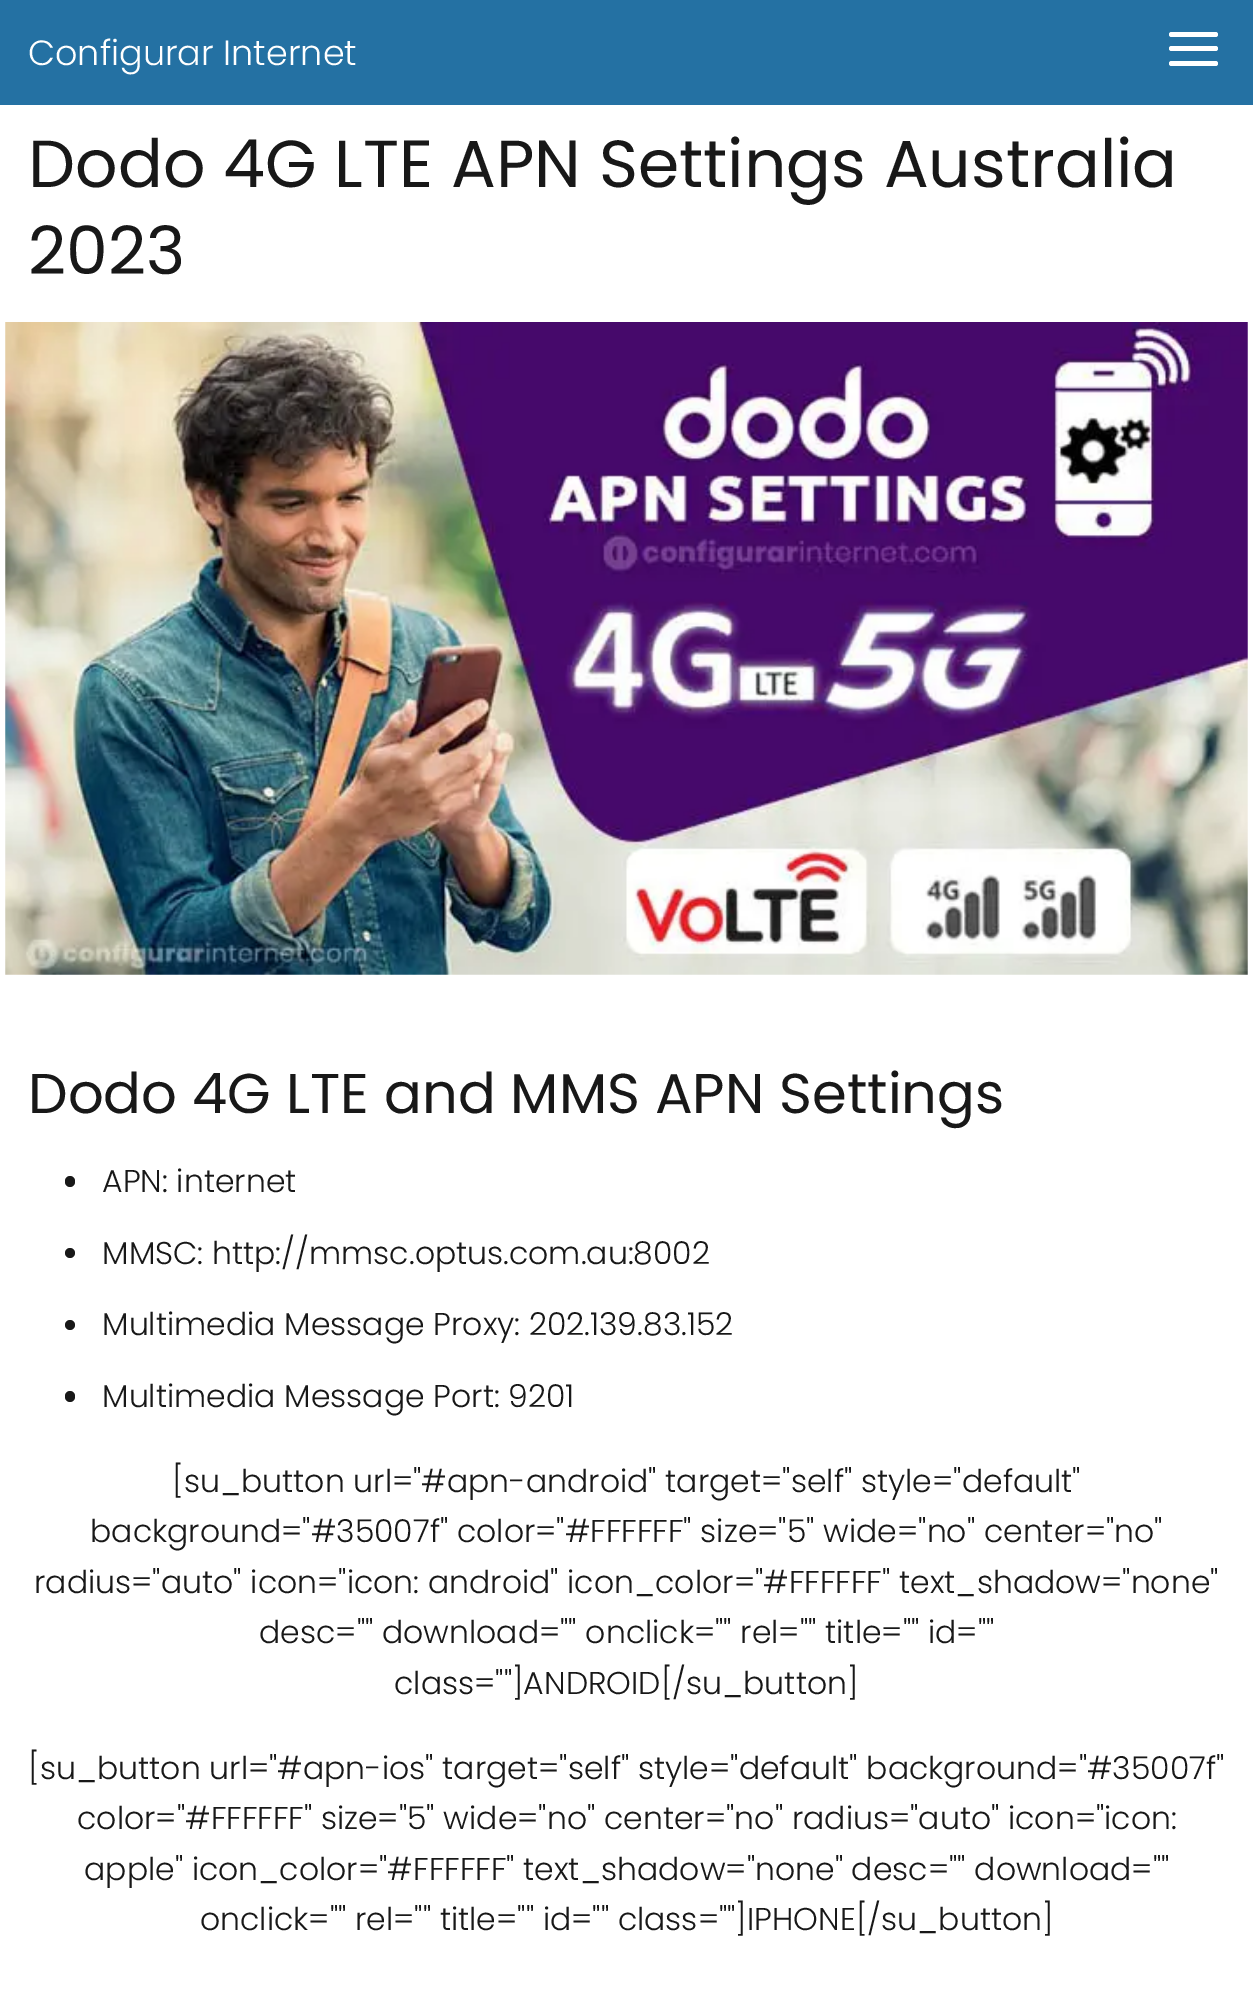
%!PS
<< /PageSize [1253 2003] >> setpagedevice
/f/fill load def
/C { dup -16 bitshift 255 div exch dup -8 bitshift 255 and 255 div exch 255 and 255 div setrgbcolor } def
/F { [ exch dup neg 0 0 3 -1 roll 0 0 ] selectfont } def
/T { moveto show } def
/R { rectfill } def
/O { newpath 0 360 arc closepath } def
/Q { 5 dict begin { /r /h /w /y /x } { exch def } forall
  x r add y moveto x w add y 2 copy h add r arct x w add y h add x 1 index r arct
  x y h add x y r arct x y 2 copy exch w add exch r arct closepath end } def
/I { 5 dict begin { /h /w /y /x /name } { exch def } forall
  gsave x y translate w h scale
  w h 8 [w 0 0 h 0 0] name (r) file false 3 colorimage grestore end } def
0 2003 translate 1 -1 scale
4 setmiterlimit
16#FFFFFF C
0 0 1253 2003 R
16#2471A3 C
0 0 1253 105 R
/Poppins-Light 35 F
16#FFFFFF C
(Configurar Internet) 28 65 T
1169 32 49 5 2.5 Q f
1169 46 49 5 2.5 Q f
1169 61 49 5 2.5 Q f
/Poppins-Regular 66.5 F
16#181818 C
(Dodo 4G LTE APN Settings Australia) 28 187 T
(2023) 28 274 T
(1.rgb) 5 322 1243 653 I
/Poppins-Regular 56 F
(Dodo 4G LTE and MMS APN Settings) 28 1113 T
65 1176 10 11 5 Q f
/Poppins-Light 31.5 F
(APN: internet) 102 1192 T
70 1253 5 O f
(MMSC: http://mmsc.optus.com.au:8002) 102 1264 T
70 1325 5 O f
(Multimedia Message Proxy: 202.139.83.152) 102 1335 T
65 1391 10 11 5 Q f
(Multimedia Message Port: 9201) 102 1407 T
([su_button url="#apn-android" target="self" style="default") 172 1492 T
(background="#35007f" color="#FFFFFF" size="5" wide="no" center="no") 90 1542 T
(radius="auto" icon="icon: android" icon_color="#FFFFFF" text_shadow="none") 34 1593 T
(desc="" download="" onclick="" rel="" title="" id="") 259 1643 T
(class=""]ANDROID[/su_button]) 394 1694 T
([su_button url="#apn-ios" target="self" style="default" background="#35007f") 28 1779 T
(color="#FFFFFF" size="5" wide="no" center="no" radius="auto" icon="icon:) 77 1829 T
(apple" icon_color="#FFFFFF" text_shadow="none" desc="" download="") 84 1880 T
(onclick="" rel="" title="" id="" class=""]IPHONE[/su_button]) 200 1930 T
showpage
